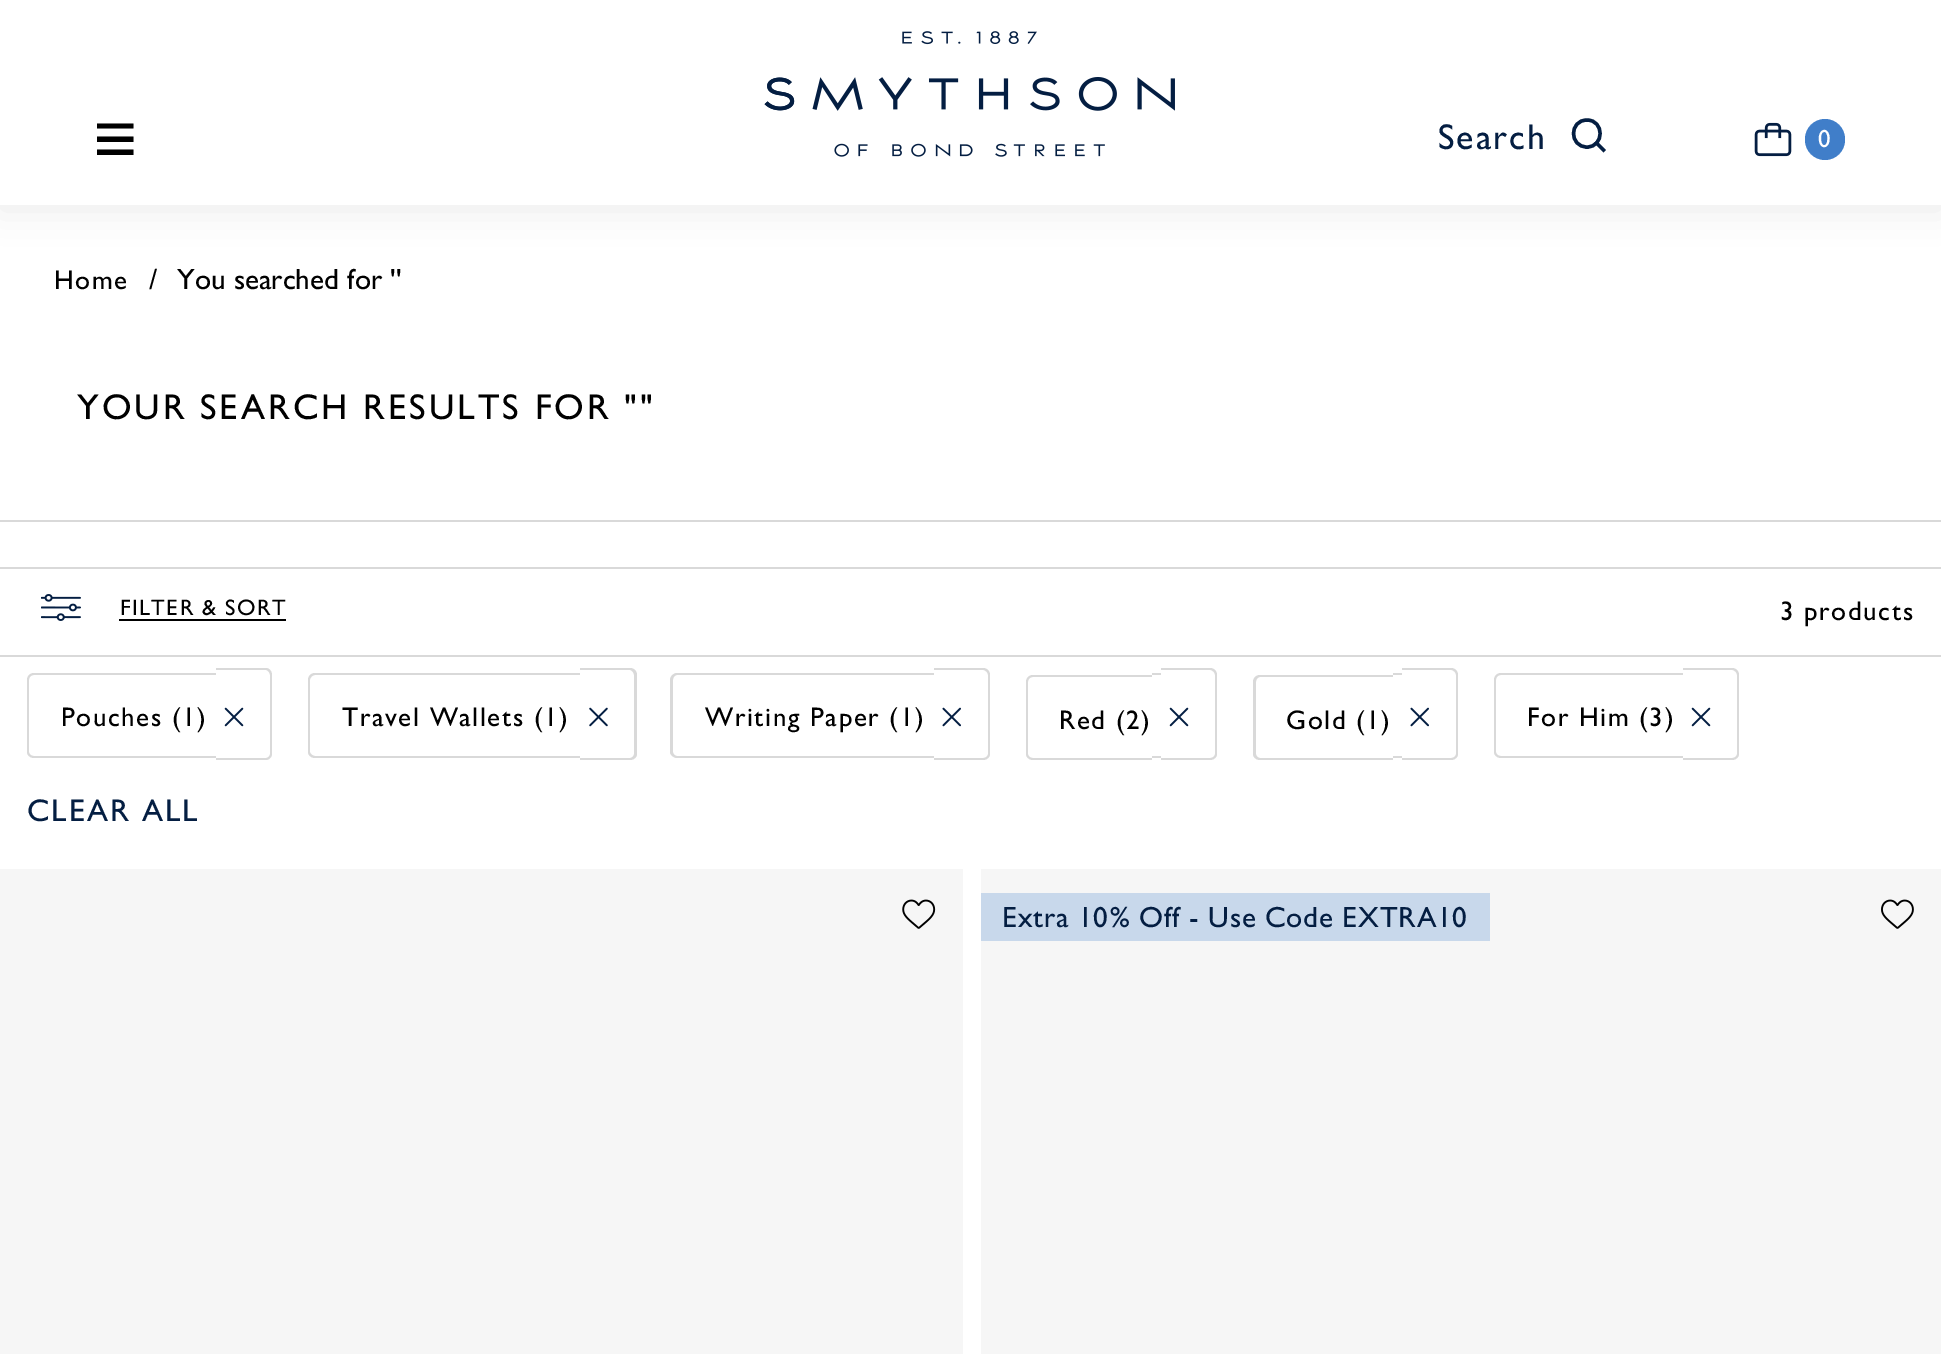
%!PS
<< /PageSize [1941 1354] /PageUsesTransparency true >> setpagedevice
/m/moveto load def
/l/rlineto load def
/c/rcurveto load def
/z/closepath load def
/f/fill load def
/s/stroke load def
/q/gsave load def
/Q_/grestore load def
/w/setlinewidth load def
/C { dup -16 bitshift 255 div exch dup -8 bitshift 255 and 255 div exch 255 and 255 div setrgbcolor } def
/F { [ exch dup neg 0 0 3 -1 roll 0 0 ] selectfont } def
/T { moveto show } def
/R { rectfill } def
/A { dup .setfillconstantalpha .setstrokeconstantalpha } def
/Q { 5 dict begin { /r /h /w /y /x } { exch def } forall
  x r add y moveto x w add y 2 copy h add r arct x w add y h add x 1 index r arct
  x y h add x y r arct x y 2 copy exch w add exch r arct closepath end } def
/S { 12 dict begin { /a /b /q /h /w /y /x } { exch def } forall gsave /was 0 def
  9 -2 -9 { dup b mul 4 div /e exch def 1 sub .425 mul 2.718 exch exp 1 add a .99 .min exch div /now exch def
    1 1 now sub 1 was sub div sub A /was now def
    w h .min e 2 mul add 0 gt { x e sub y e sub w e 2 mul add h e 2 mul add
      q e add b .6 mul add w h .min 2 div e add .min 0 .max Q fill } if } for grestore end } def
/I { 5 dict begin { /h /w /y /x /name } { exch def } forall
  gsave x y translate w h scale
  w h 8 [w 0 0 h 0 0] name (r) file false 3 colorimage grestore end } def
0 .pushpdf14devicefilter
0 1354 translate 1 -1 scale
4 setmiterlimit
16#FFFFFF C
0 0 1941 1354 R
q
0 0 m 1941 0 l 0 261 l -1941 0 l z 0 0 m 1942 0 l 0 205 l -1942 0 l z eoclip newpath
16#AAAAAA C
0 5 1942 204 0 17 .25 S
Q_
16#000000 C
97 155 m 0 -5.5 l 36.5 0 l 0 5.5 l z 97 136.5 m 36.5 0 l 0 5.5 l -36.5 0 l z 97 123.5 m 36.5 0 l 0 5 l -36.5 0 l z f
(1.rgb) 764 31 411 126 I
/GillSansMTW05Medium-Medium 36 F
16#041E42 C
1438 149 m 2 0 (Search) ashow
3.4 w
1 setlinecap
1 setlinejoin
1587 147 m 17.5 0 17.5 -27 0 -27 c -18 0 -18 27 0 27 c z s
2 setlinecap
1603.5 150 m -7 -7 l s
(2.rgb) 1754 122 38 35 I
16#407EC9 C
1805 119 40 41 20 Q f
/GillSansMTW05Medium-Medium 25 F
16#FFFFFF C
(0) 1818 147 T
/GillSansMTW05Medium-Medium 27 F
16#000000 C
54 289 m 1.6 0 (Home) ashow
/GillSansMTW05Medium-Medium 29.25 F
(/) 149 289 T
(You searched for '') 177 289 T
16#D9D9D9 C
0 520 1941 2 R
/GillSansMTW05Medium-Medium 36 F
16#000000 C
77 419 m 2.9 0 (YOUR SEARCH RESULTS FOR "") ashow
16#D9D9D9 C
0 567 1941 2 R
0 655 1941 2 R
(3.rgb) 41 594 40 27 I
/GillSansMTW05Medium-Medium 22.5 F
16#000000 C
120 615 m 1.4 0 (FILTER & SORT) ashow
119 619 167 2 R
/GillSansMTW05Medium-Medium 27 F
1780 620 m 1.6 0 (3 products) ashow
16#D9D9D9 C
34 673 m 182 0 l 0 85 l -182 0 l -4 0 -7 -3 -7 -6 c 0 -72 l 0 -4 3 -7 7 -7 c z 34 675 m 182 0 l 0 81 l -182 0 l -3 0 -5 -2 -5 -4 c 0 -72 l 0 -3 2 -5 5 -5 c z eofill
16#000000 C
61 726 m 1.6 0 (Pouches \(1\)) ashow
16#D9D9D9 C
216 668 m 50 0 l 3 0 6 3 6 7 c 0 79 l 0 3 -3 6 -6 6 c -50 0 l z 216 670 m 50 0 l 2 0 4 3 4 5 c 0 79 l 0 2 -2 4 -4 4 c -50 0 l z eofill
(4.rgb) 224 707 20 20 I
315 673 m 265 0 l 0 85 l -265 0 l -4 0 -7 -3 -7 -6 c 0 -72 l 0 -4 3 -7 7 -7 c z 315 675 m 265 0 l 0 81 l -265 0 l -2 0 -5 -2 -5 -4 c 0 -72 l 0 -3 3 -5 5 -5 c z eofill
16#000000 C
342 726 m 1.6 0 (Travel Wallets \(1\)) ashow
16#D9D9D9 C
580 668 m 50 0 l 4 0 7 3 7 7 c 0 79 l 0 3 -3 6 -7 6 c -50 0 l z 580 670 m 50 0 l 2 0 4 3 4 5 c 0 79 l 0 2 -2 4 -4 4 c -50 0 l z eofill
(5.rgb) 589 707 19 20 I
677 673 m 257 0 l 0 85 l -257 0 l -3 0 -7 -3 -7 -6 c 0 -72 l 0 -4 4 -7 7 -7 c z 677 675 m 257 0 l 0 81 l -257 0 l -2 0 -4 -2 -4 -4 c 0 -72 l 0 -3 2 -5 4 -5 c z eofill
16#000000 C
705 726 m 1.6 0 (Writing Paper \(1\)) ashow
16#D9D9D9 C
934 668 m 49 0 l 4 0 7 3 7 7 c 0 79 l 0 3 -3 6 -7 6 c -49 0 l z 934 670 m 49 0 l 3 0 5 3 5 5 c 0 79 l 0 2 -2 4 -5 4 c -49 0 l z eofill
(6.rgb) 942 707 19 20 I
1033 675 m 27 0 l 0 85 l -27 0 l -4 0 -7 -3 -7 -6 c 0 -72 l 0 -4 3 -7 7 -7 c z 1033 677 m 27 0 l 0 81 l -27 0 l -3 0 -5 -2 -5 -4 c 0 -72 l 0 -3 2 -5 5 -5 c z eofill
1060 675 92 2 R
1060 758 92 2 R
1152 673 9 2 R
1152 756 9 2 R
1161 668 m 49 0 l 4 0 7 3 7 7 c 0 79 l 0 3 -3 6 -7 6 c -49 0 l z 1161 670 m 49 0 l 3 0 5 3 5 5 c 0 79 l 0 2 -2 4 -5 4 c -49 0 l z eofill
16#000000 C
1059 729 m 1.6 0 (Red \(2\)) ashow
(4.rgb) 1169 707 20 20 I
16#D9D9D9 C
1260 675 m 27 0 l 0 85 l -27 0 l -4 0 -7 -3 -7 -6 c 0 -72 l 0 -4 3 -7 7 -7 c z 1260 677 m 27 0 l 0 81 l -27 0 l -2 0 -4 -2 -4 -4 c 0 -72 l 0 -3 2 -5 4 -5 c z eofill
1287 675 106 2 R
1287 758 106 2 R
1393 673 9 2 R
1393 756 9 2 R
1402 668 m 49 0 l 4 0 7 3 7 7 c 0 79 l 0 3 -3 6 -7 6 c -49 0 l z 1402 670 m 49 0 l 3 0 5 3 5 5 c 0 79 l 0 2 -2 4 -5 4 c -49 0 l z eofill
16#000000 C
1286 729 m 1.6 0 (Gold \(1\)) ashow
(6.rgb) 1410 707 19 20 I
16#D9D9D9 C
1501 673 m 182 0 l 0 85 l -182 0 l -4 0 -7 -3 -7 -6 c 0 -72 l 0 -4 3 -7 7 -7 c z 1501 675 m 182 0 l 0 81 l -182 0 l -3 0 -5 -2 -5 -4 c 0 -72 l 0 -3 2 -5 5 -5 c z eofill
16#000000 C
1527 726 m 1.6 0 (For Him \(3\)) ashow
16#D9D9D9 C
1683 668 m 49 0 l 4 0 7 3 7 7 c 0 79 l 0 3 -3 6 -7 6 c -49 0 l z 1683 670 m 49 0 l 3 0 5 3 5 5 c 0 79 l 0 2 -2 4 -5 4 c -49 0 l z eofill
(4.rgb) 1691 707 20 20 I
/GillSansMTW05Medium-Medium 31.5 F
16#041E42 C
27 821 m 2 0 (CLEAR ALL) ashow
16#F6F6F6 C
0 869 963 485 R
(7.rgb) 902 899 34 30 I
981 869 960 485 R
16#C8D8EB C
981 893 509 48 R
/GillSansMTW05Medium-Medium 29.25 F
16#041E42 C
1002 927 m .7 0 (Extra 10% Off - Use Code EXTRA10) ashow
(8.rgb) 1881 899 33 30 I
.poppdf14devicefilter showpage
